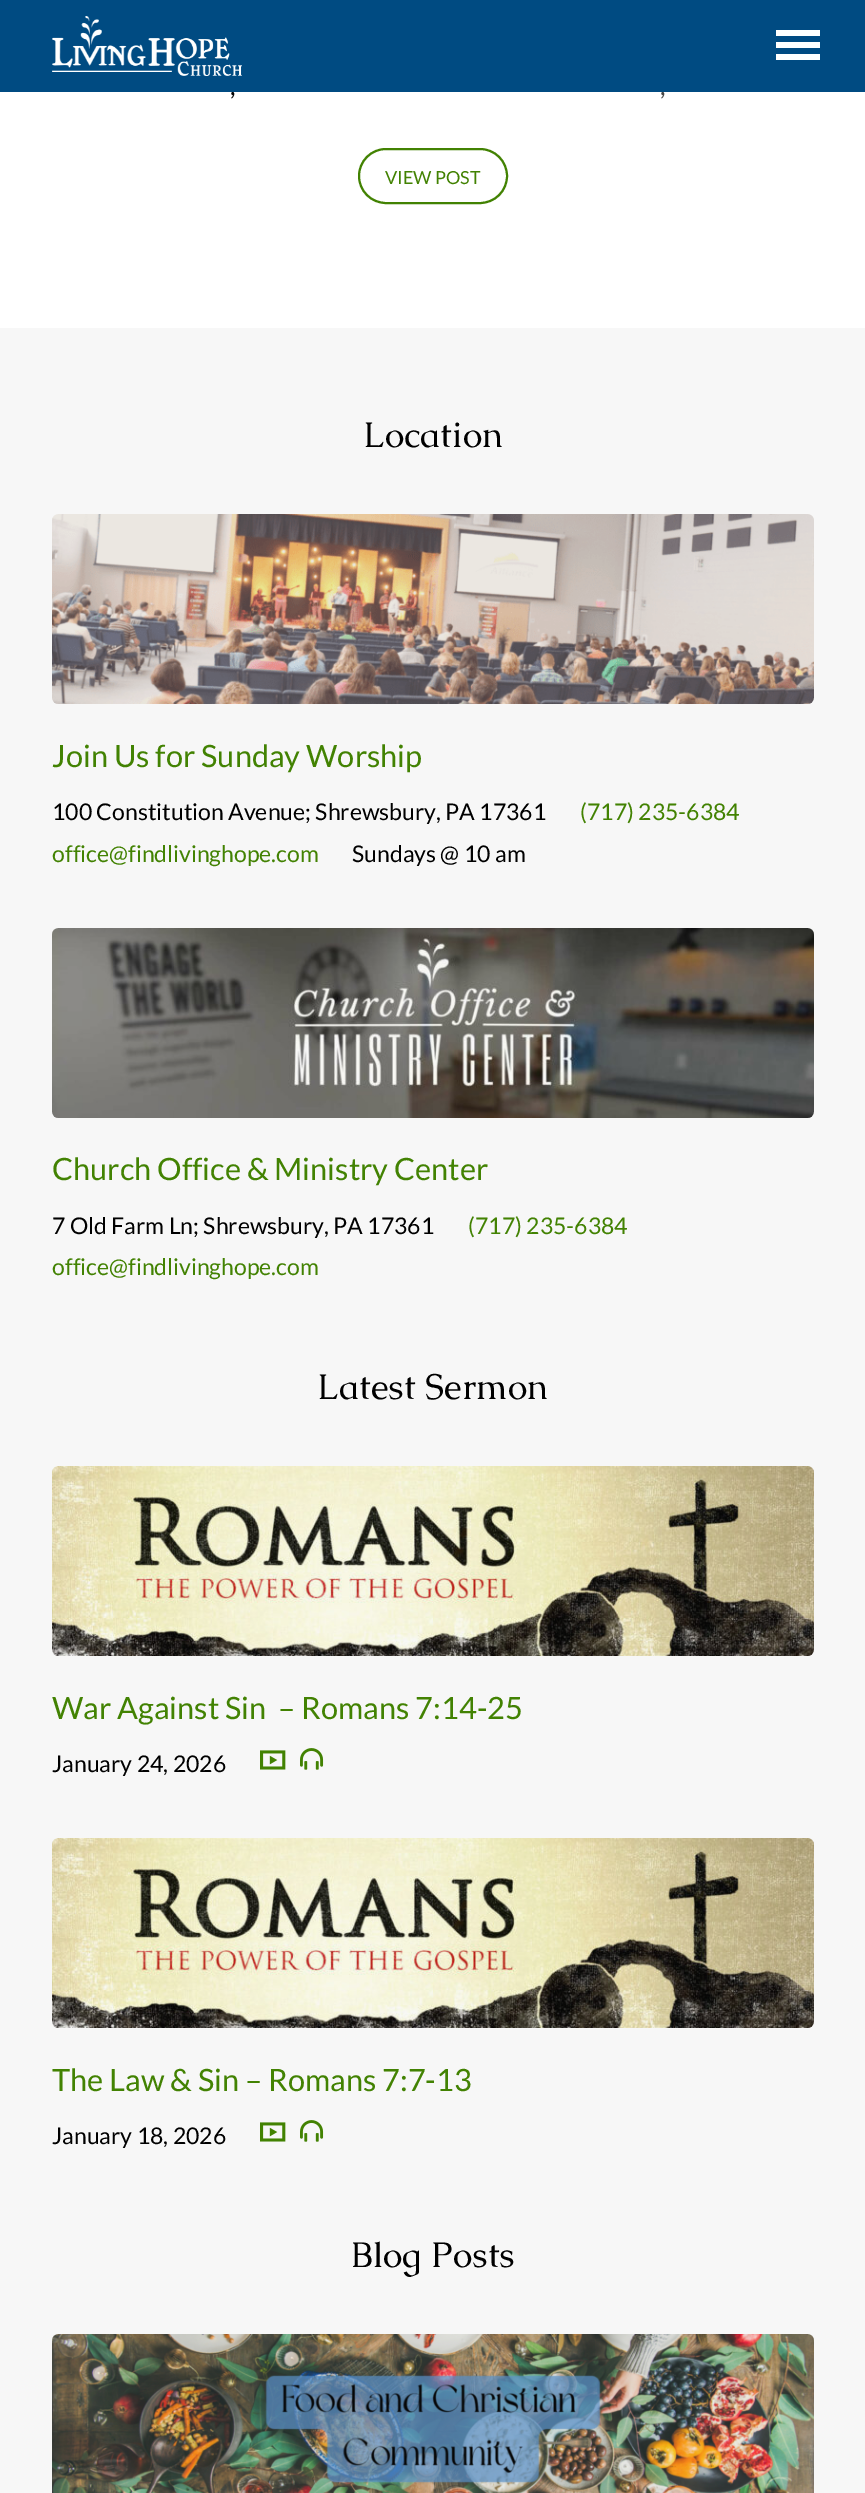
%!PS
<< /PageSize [865 2493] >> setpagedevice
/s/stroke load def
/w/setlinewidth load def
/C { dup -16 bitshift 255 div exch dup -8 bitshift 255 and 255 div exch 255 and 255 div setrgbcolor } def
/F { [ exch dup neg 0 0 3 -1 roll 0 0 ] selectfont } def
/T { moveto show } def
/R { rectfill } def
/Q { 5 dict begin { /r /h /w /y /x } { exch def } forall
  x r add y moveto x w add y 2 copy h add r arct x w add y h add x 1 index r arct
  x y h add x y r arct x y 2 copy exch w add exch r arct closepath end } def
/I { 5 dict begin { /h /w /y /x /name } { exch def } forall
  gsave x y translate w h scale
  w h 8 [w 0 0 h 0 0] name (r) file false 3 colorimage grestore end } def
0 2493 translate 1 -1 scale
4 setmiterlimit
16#FFFFFF C
0 0 865 2493 R
16#004B82 C
0 0 865 92 R
(1.rgb) 52 16 190 60 I
16#FFFFFF C
776 30 44 6 R
776 42 44 6 R
776 54 44 6 R
/Lato-Regular 26 F
16#000000 C
(,) 230 95 T
16#444444 C
(,) 660 95 T
16#428202 C
2 w
359 149 148 54 27 Q s
/Lato-Regular 18 F
(VIEW POST) 385 184 T
16#F7F7F7 C
0 328 865 2165 R
/Caudex-Regular 35.75 F
16#000000 C
(Location) 363 447 T
(2.rgb) 52 514 762 190 I
/Lato-Regular 30.75 F
16#428202 C
(Join Us for Sunday Worship) 52 767 T
/Lato-Regular 23 F
16#000000 C
(100 Constitution Avenue; Shrewsbury, PA 17361) 52 820 T
16#428202 C
(\(717\) 235-6384) 580 820 T
(office@findlivinghope.com) 52 862 T
16#000000 C
(Sundays @ 10 am) 352 862 T
(3.rgb) 52 928 762 190 I
/Lato-Regular 30.75 F
16#428202 C
(Church Office & Ministry Center) 52 1180 T
/Lato-Regular 23 F
16#000000 C
(7 Old Farm Ln; Shrewsbury, PA 17361) 52 1234 T
16#428202 C
(\(717\) 235-6384) 468 1234 T
(office@findlivinghope.com) 52 1275 T
/Caudex-Regular 35.75 F
16#000000 C
(Latest Sermon) 317 1399 T
(4.rgb) 52 1466 762 190 I
/Lato-Regular 30.75 F
16#428202 C
(War Against Sin  – Romans 7:14-25) 52 1719 T
/Lato-Regular 23 F
16#000000 C
(January 24, 2026) 52 1772 T
(5.rgb) 260 1750 26 20 I
(6.rgb) 300 1748 24 22 I
(4.rgb) 52 1838 762 190 I
/Lato-Regular 30.75 F
16#428202 C
(The Law & Sin – Romans 7:7-13) 52 2091 T
/Lato-Regular 23 F
16#000000 C
(January 18, 2026) 52 2144 T
(5.rgb) 260 2122 26 20 I
(6.rgb) 300 2120 24 22 I
/Caudex-Regular 35.75 F
(Blog Posts) 351 2267 T
(7.rgb) 52 2334 762 159 I
showpage
